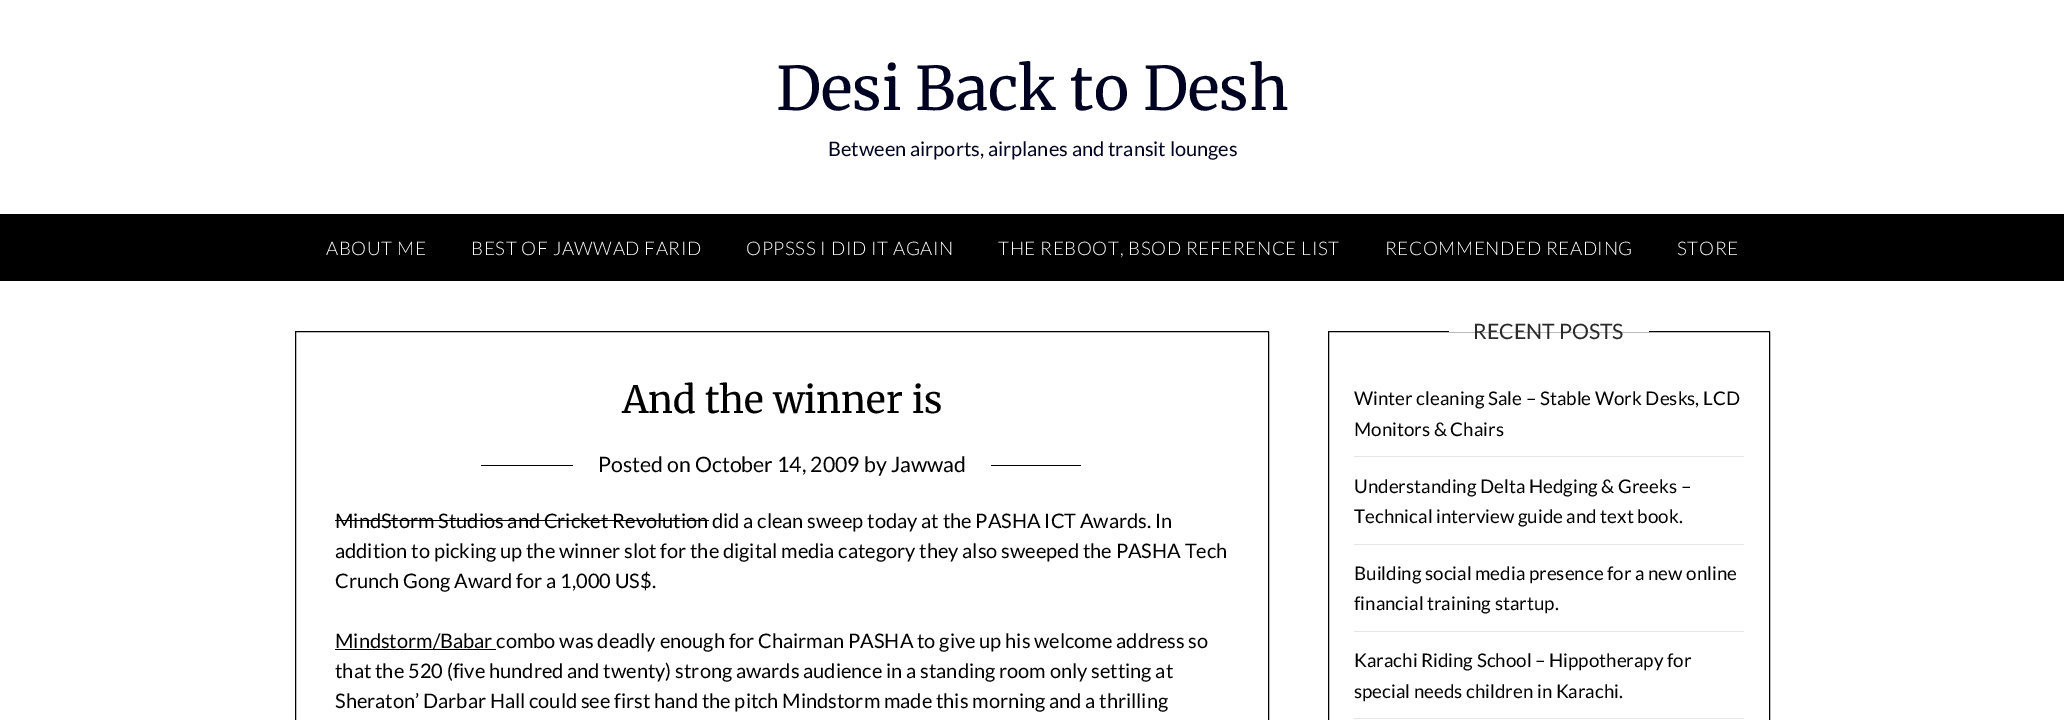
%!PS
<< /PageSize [2064 720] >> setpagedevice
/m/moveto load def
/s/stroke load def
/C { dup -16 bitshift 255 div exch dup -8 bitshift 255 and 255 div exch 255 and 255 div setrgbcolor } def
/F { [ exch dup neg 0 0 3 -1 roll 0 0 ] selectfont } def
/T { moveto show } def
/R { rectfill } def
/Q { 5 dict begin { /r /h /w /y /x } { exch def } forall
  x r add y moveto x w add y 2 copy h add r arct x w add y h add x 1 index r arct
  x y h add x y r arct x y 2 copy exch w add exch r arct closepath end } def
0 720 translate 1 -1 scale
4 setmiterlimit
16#FFFFFF C
0 0 2064 720 R
/Merriweather-Regular 60 F
16#000222 C
(Desi Back to Desh) 776 110 T
/Lato-Regular 20 F
(Between airports, airplanes and transit lounges) 828 156 T
16#000000 C
0 214 2064 67 R
/Lato-Light 18.75 F
16#FFFFFF C
326 255 m .6 0 (ABOUT ME) ashow
471 255 m .6 0 (BEST OF JAWWAD FARID) ashow
746 255 m .6 0 (OPPSSS I DID IT AGAIN) ashow
998 255 m .6 0 (THE REBOOT, BSOD REFERENCE LIST) ashow
1385 255 m .6 0 (RECOMMENDED READING) ashow
1677 255 m .6 0 (STORE) ashow
16#000000 C
295.5 331.5 973 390 .5 Q s
/Merriweather-Regular 37.5 F
(And the winner is) 622 413 T
481 465 600 1 R
16#FFFFFF C
573 465 418 1 R
/Lato-Regular 21.25 F
16#000000 C
(Posted on October 14, 2009 by Jawwad) 598 472 T
/Lato-Regular 20 F
(MindStorm Studios and Cricket Revolution did a clean sweep today at the PASHA ICT Awards. In) 335 528 T
335 520 374 1 R
(addition to picking up the winner slot for the digital media category they also sweeped the PASHA Tech) 335 558 T
(Crunch Gong Award for a 1,000 US$.) 335 588 T
335 649 161 1 R
(Mindstorm/Babar combo was deadly enough for Chairman PASHA to give up his welcome address so) 335 648 T
(that the 520 \(five hundred and twenty\) strong awards audience in a standing room only setting at) 335 678 T
(Sheraton’ Darbar Hall could see first hand the pitch Mindstorm made this morning and a thrilling) 335 708 T
1328.5 331.5 441 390 .5 Q s
16#FFFFFF C
1449 331 200 1 R
/Lato-Regular 21.25 F
16#2B2B2B C
(RECENT POSTS) 1473 339 T
16#E6E6E6 C
1354 456 390 1 R
/Lato-Regular 18.75 F
16#000000 C
(Winter cleaning Sale – Stable Work Desks, LCD) 1354 405 T
(Monitors & Chairs) 1354 436 T
16#E6E6E6 C
1354 544 390 1 R
16#000000 C
(Understanding Delta Hedging & Greeks –) 1354 493 T
(Technical interview guide and text book.) 1354 523 T
16#E6E6E6 C
1354 631 390 1 R
16#000000 C
(Building social media presence for a new online) 1354 580 T
(financial training startup.) 1354 610 T
16#E6E6E6 C
1354 718 390 1 R
16#000000 C
(Karachi Riding School – Hippotherapy for) 1354 667 T
(special needs children in Karachi.) 1354 698 T
showpage
